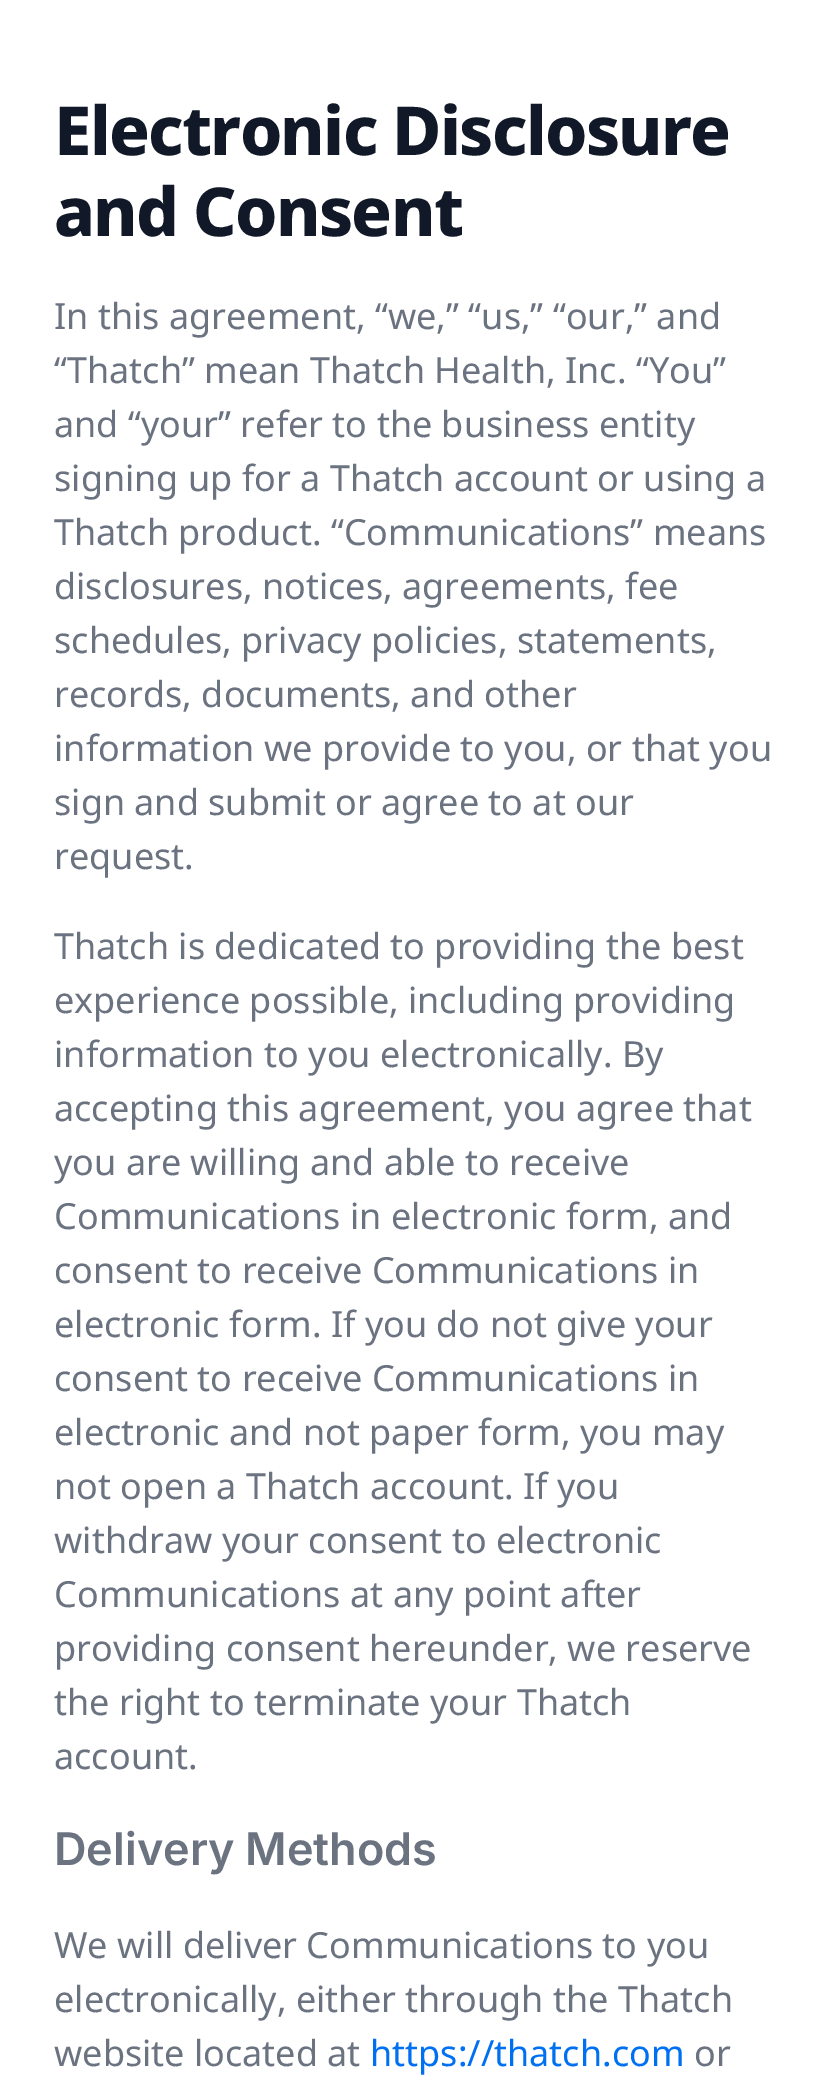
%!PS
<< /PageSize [827 2089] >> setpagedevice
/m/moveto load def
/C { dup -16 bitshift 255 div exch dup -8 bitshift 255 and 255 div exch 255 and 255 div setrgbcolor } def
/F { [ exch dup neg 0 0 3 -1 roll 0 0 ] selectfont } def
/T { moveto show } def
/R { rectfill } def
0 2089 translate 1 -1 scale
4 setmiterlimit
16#FFFFFF C
0 0 827 2089 R
/NotoSans-ExtraBold 67.5 F
16#111827 C
54 155 m -1.7 0 (Electronic Disclosure) ashow
54 236 m -1.7 0 (and Consent) ashow
/NotoSans-Regular 36 F
16#6B7280 C
(In this agreement, “we,” “us,” “our,” and) 54 329 T
(“Thatch” mean Thatch Health, Inc. “You”) 54 383 T
(and “your” refer to the business entity) 54 437 T
(signing up for a Thatch account or using a) 54 491 T
(Thatch product. “Communications” means) 54 545 T
(disclosures, notices, agreements, fee) 54 599 T
(schedules, privacy policies, statements,) 54 653 T
(records, documents, and other) 54 707 T
(information we provide to you, or that you) 54 761 T
(sign and submit or agree to at our) 54 815 T
(request.) 54 869 T
(Thatch is dedicated to providing the best) 54 959 T
(experience possible, including providing) 54 1013 T
(information to you electronically. By) 54 1067 T
(accepting this agreement, you agree that) 54 1121 T
(you are willing and able to receive) 54 1175 T
(Communications in electronic form, and) 54 1229 T
(consent to receive Communications in) 54 1283 T
(electronic form. If you do not give your) 54 1337 T
(consent to receive Communications in) 54 1391 T
(electronic and not paper form, you may) 54 1445 T
(not open a Thatch account. If you) 54 1499 T
(withdraw your consent to electronic) 54 1553 T
(Communications at any point after) 54 1607 T
(providing consent hereunder, we reserve) 54 1661 T
(the right to terminate your Thatch) 54 1715 T
(account.) 54 1769 T
/Inter-SemiBold 45 F
(Delivery Methods) 54 1865 T
/NotoSans-Regular 36 F
(We will deliver Communications to you) 54 1958 T
(electronically, either through the Thatch) 54 2012 T
(website located at) 54 2066 T
16#0070F3 C
(https://thatch.com) 370 2066 T
16#6B7280 C
(or) 694 2066 T
showpage
